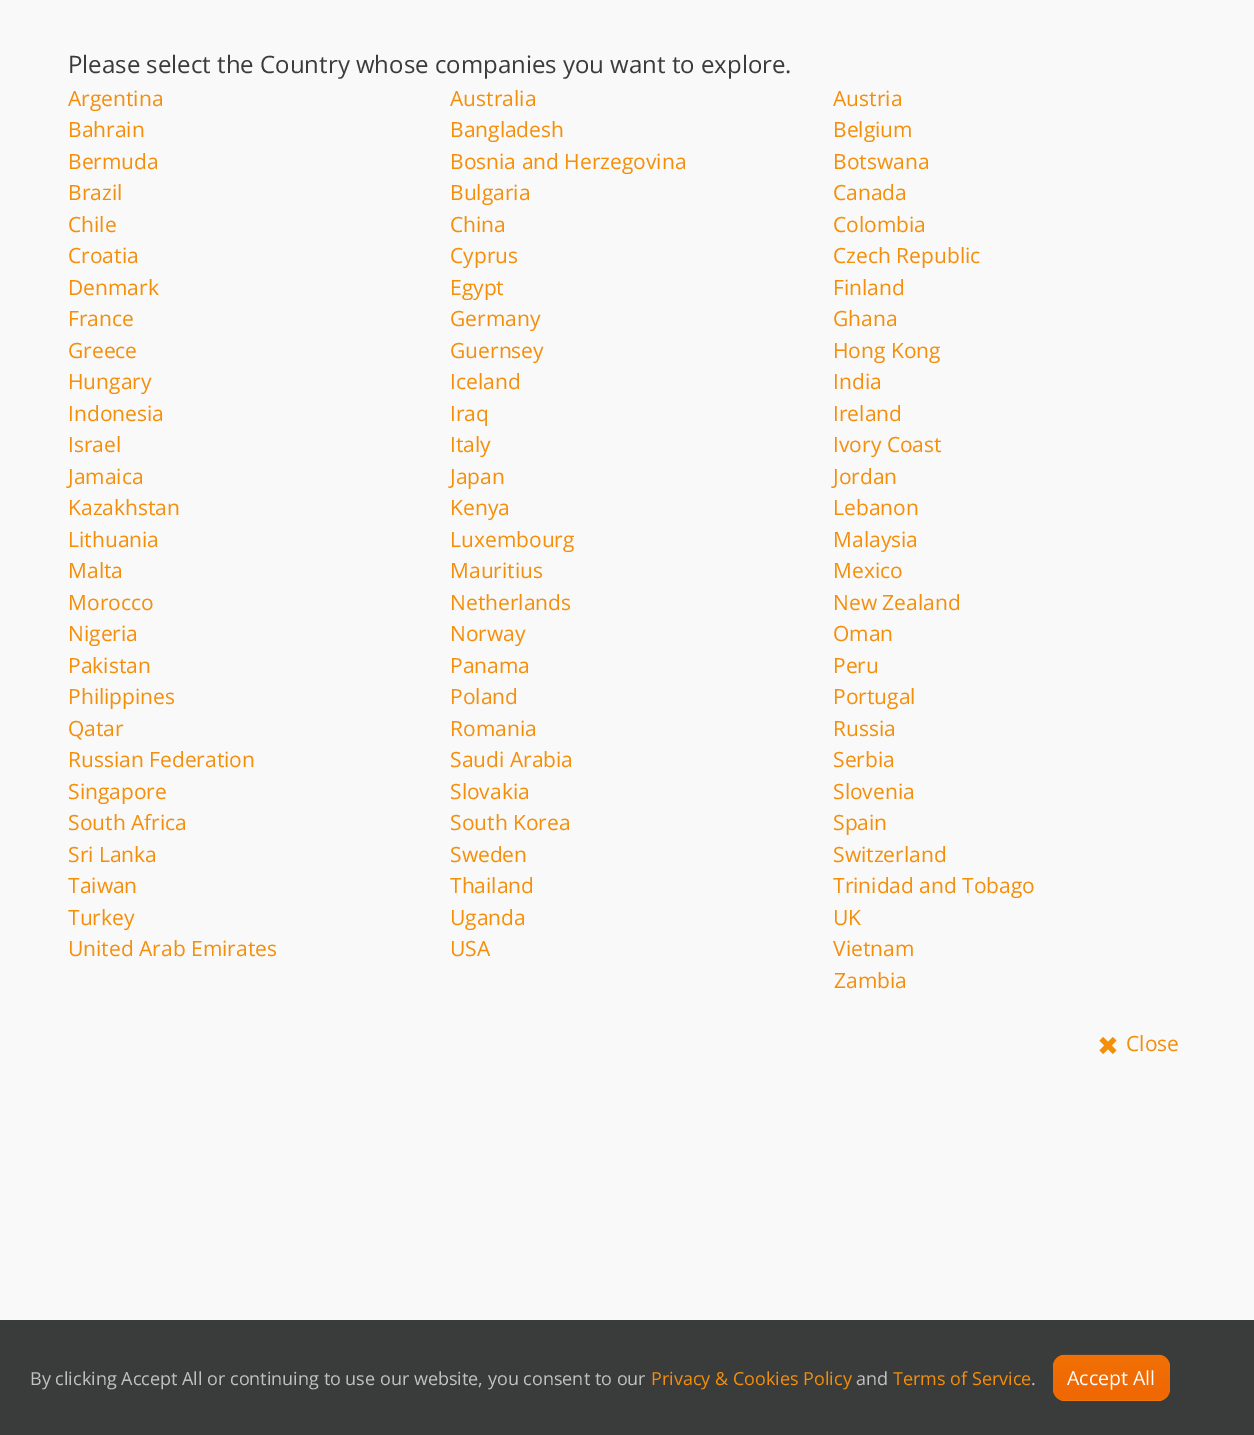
%!PS
<< /PageSize [1254 1435] >> setpagedevice
/C { dup -16 bitshift 255 div exch dup -8 bitshift 255 and 255 div exch 255 and 255 div setrgbcolor } def
/F { [ exch dup neg 0 0 3 -1 roll 0 0 ] selectfont } def
/T { moveto show } def
/R { rectfill } def
/I { 5 dict begin { /h /w /y /x /name } { exch def } forall
  gsave x y translate w h scale
  w h 8 [w 0 0 h 0 0] name (r) file false 3 colorimage grestore end } def
0 1435 translate 1 -1 scale
4 setmiterlimit
16#F9F9F9 C
0 0 1254 1435 R
/OpenSans-Regular 24 F
16#3A3C3C C
(Please select the Country whose companies you want to explore.) 68 73 T
/OpenSans-Regular 21 F
16#F58E09 C
(Argentina) 68 106 T
(Australia) 450 106 T
(Austria) 833 106 T
(Bahrain) 68 137 T
(Bangladesh) 450 137 T
(Belgium) 833 137 T
(Bermuda) 68 169 T
(Bosnia and Herzegovina) 450 169 T
(Botswana) 833 169 T
(Brazil) 68 200 T
(Bulgaria) 450 200 T
(Canada) 833 200 T
(Chile) 68 232 T
(China) 450 232 T
(Colombia) 833 232 T
(Croatia) 68 263 T
(Cyprus) 450 263 T
(Czech Republic) 833 263 T
(Denmark) 68 295 T
(Egypt) 450 295 T
(Finland) 833 295 T
(France) 68 326 T
(Germany) 450 326 T
(Ghana) 833 326 T
(Greece) 68 358 T
(Guernsey) 450 358 T
(Hong Kong) 833 358 T
(Hungary) 68 389 T
(Iceland) 450 389 T
(India) 833 389 T
(Indonesia) 68 421 T
(Iraq) 450 421 T
(Ireland) 833 421 T
(Israel) 68 452 T
(Italy) 450 452 T
(Ivory Coast) 833 452 T
(Jamaica) 68 484 T
(Japan) 450 484 T
(Jordan) 833 484 T
(Kazakhstan) 68 515 T
(Kenya) 450 515 T
(Lebanon) 833 515 T
(Lithuania) 68 547 T
(Luxembourg) 450 547 T
(Malaysia) 833 547 T
(Malta) 68 578 T
(Mauritius) 450 578 T
(Mexico) 833 578 T
(Morocco) 68 610 T
(Netherlands) 450 610 T
(New Zealand) 833 610 T
(Nigeria) 68 641 T
(Norway) 450 641 T
(Oman) 833 641 T
(Pakistan) 68 673 T
(Panama) 450 673 T
(Peru) 833 673 T
(Philippines) 68 704 T
(Poland) 450 704 T
(Portugal) 833 704 T
(Qatar) 68 736 T
(Romania) 450 736 T
(Russia) 833 736 T
(Russian Federation) 68 767 T
(Saudi Arabia) 450 767 T
(Serbia) 833 767 T
(Singapore) 68 799 T
(Slovakia) 450 799 T
(Slovenia) 833 799 T
(South Africa) 68 830 T
(South Korea) 450 830 T
(Spain) 833 830 T
(Sri Lanka) 68 862 T
(Sweden) 450 862 T
(Switzerland) 833 862 T
(Taiwan) 68 893 T
(Thailand) 450 893 T
(Trinidad and Tobago) 833 893 T
(Turkey) 68 925 T
(Uganda) 450 925 T
(UK) 833 925 T
(United Arab Emirates) 68 956 T
(USA) 450 956 T
(Vietnam) 833 956 T
(Zambia) 834 988 T
(1.rgb) 1099 1037 18 17 I
(Close) 1126 1051 T
16#3A3C3C C
0 1320 1254 115 R
/OpenSans-Regular 18 F
16#C2C2C2 C
(By clicking Accept All or continuing to use our website, you consent to our) 30 1385 T
16#F58E09 C
(Privacy & Cookies Policy) 651 1385 T
16#C2C2C2 C
(and) 856 1385 T
16#F58E09 C
(Terms of Service) 893 1385 T
16#C2C2C2 C
(.) 1031 1385 T
16#F58E09 C
1053 1389 117 3 R
(2.rgb) 1053 1354 117 47 I
/OpenSans-Regular 19.5 F
16#FFFFFF C
(Accept All) 1067 1385 T
showpage
